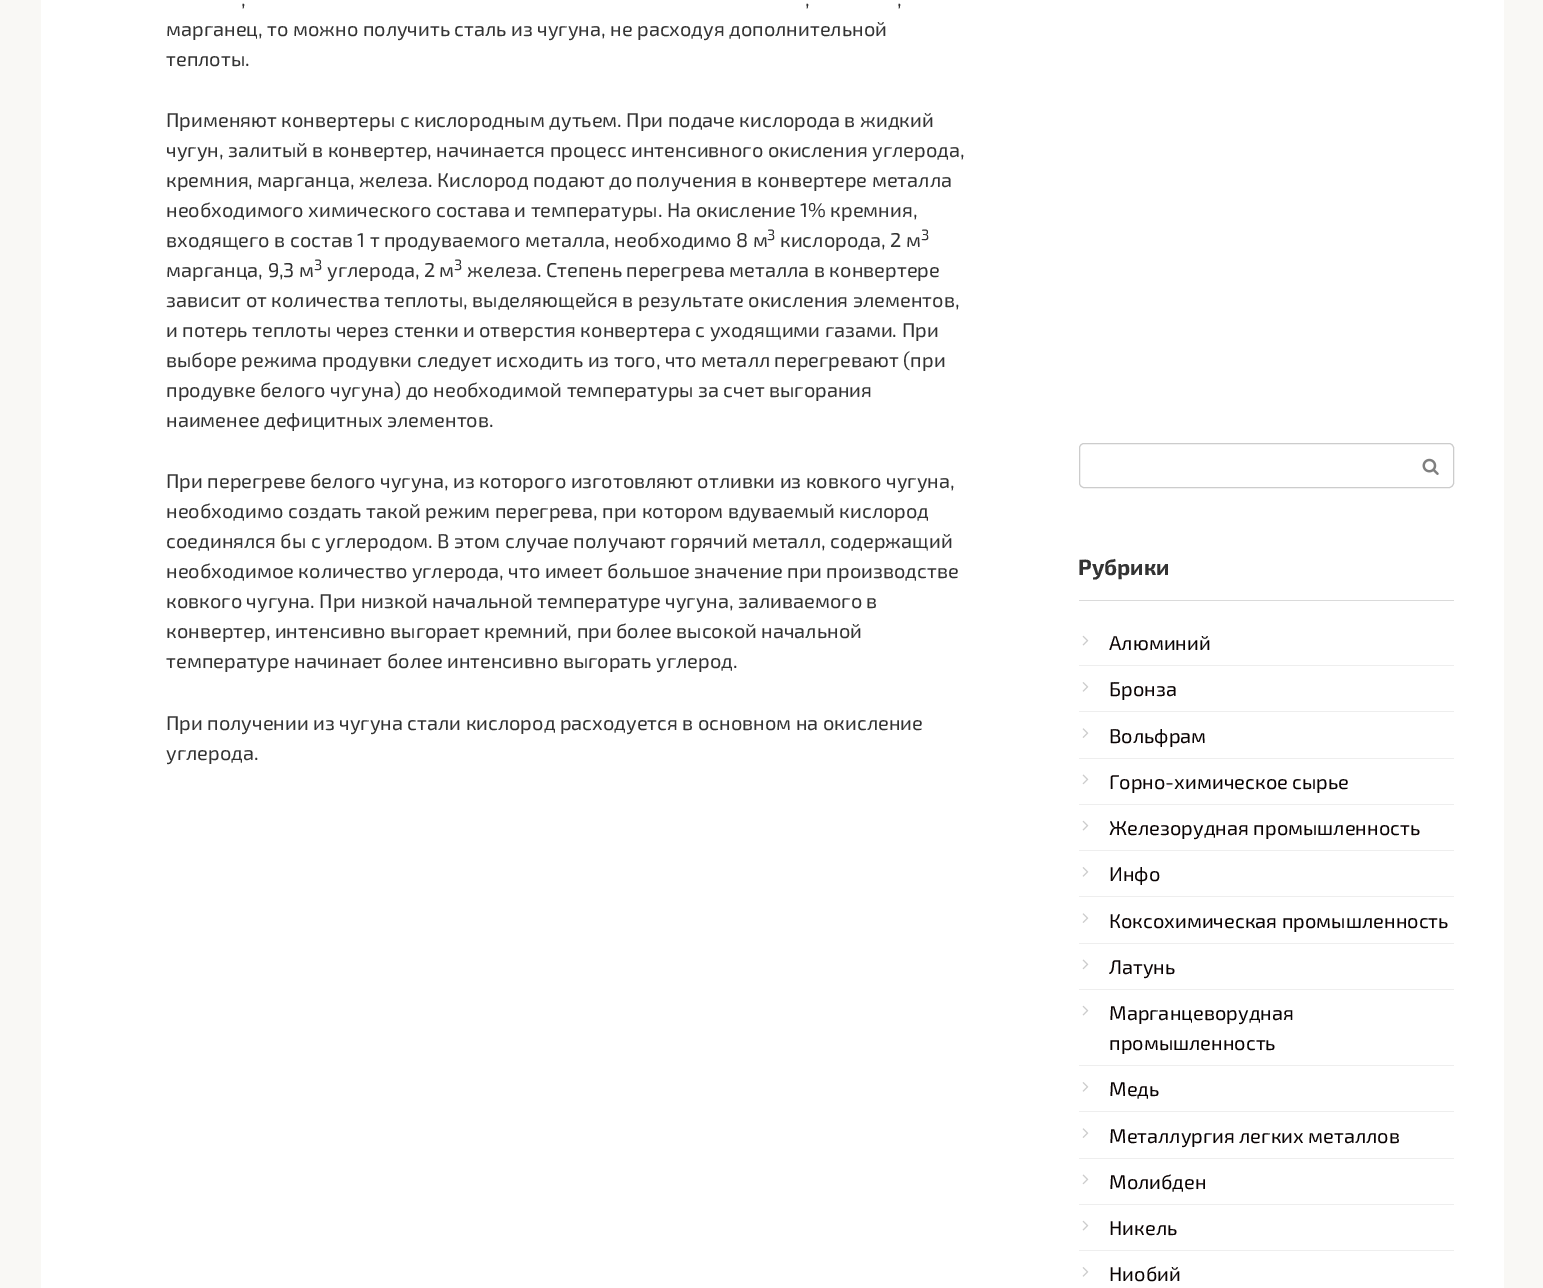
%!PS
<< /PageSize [1543 1288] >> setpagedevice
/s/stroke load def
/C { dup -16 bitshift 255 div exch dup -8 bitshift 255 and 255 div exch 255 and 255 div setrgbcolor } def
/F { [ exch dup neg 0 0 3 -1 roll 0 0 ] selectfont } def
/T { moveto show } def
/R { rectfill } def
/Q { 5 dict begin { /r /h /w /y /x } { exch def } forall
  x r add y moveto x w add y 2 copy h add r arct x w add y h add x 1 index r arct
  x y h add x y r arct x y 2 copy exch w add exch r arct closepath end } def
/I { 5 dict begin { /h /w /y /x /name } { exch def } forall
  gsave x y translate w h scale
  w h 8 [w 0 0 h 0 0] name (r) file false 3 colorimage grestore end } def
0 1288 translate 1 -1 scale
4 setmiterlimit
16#F9F8F5 C
0 0 1543 1288 R
16#FFFFFF C
41 0 1463 1288 R
/Exo2-Regular 20 F
16#333333 C
(,) 241 6 T
(,) 805 6 T
(,) 897 6 T
(марганец, то можно получить сталь из чугуна, не расходуя дополнительной) 166 36 T
(теплоты.) 166 66 T
(Применяют конвертеры с кислородным дутьем. При подаче кислорода в жидкий) 166 127 T
(чугун, залитый в конвертер, начинается процесс интенсивного окисления углерода,) 166 157 T
(кремния, марганца, железа. Кислород подают до получения в конвертере металла) 166 187 T
(необходимого химического состава и температуры. На окисление 1% кремния,) 166 217 T
(входящего в состав 1 т продуваемого металла, необходимо 8 м) 166 247 T
/Exo2-Regular 15 F
(3) 767 240 T
/Exo2-Regular 20 F
(кислорода, 2 м) 780 247 T
/Exo2-Regular 15 F
(3) 921 240 T
/Exo2-Regular 20 F
(марганца, 9,3 м) 166 277 T
/Exo2-Regular 15 F
(3) 314 270 T
/Exo2-Regular 20 F
(углерода, 2 м) 327 277 T
/Exo2-Regular 15 F
(3) 454 270 T
/Exo2-Regular 20 F
(железа. Степень перегрева металла в конвертере) 467 277 T
(зависит от количества теплоты, выделяющейся в результате окисления элементов,) 166 307 T
(и потерь теплоты через стенки и отверстия конвертера с уходящими газами. При) 166 337 T
(выборе режима продувки следует исходить из того, что металл перегревают \(при) 166 367 T
(продувке белого чугуна\) до необходимой температуры за счет выгорания) 166 397 T
(наименее дефицитных элементов.) 166 427 T
(При перегреве белого чугуна, из которого изготовляют отливки из ковкого чугуна,) 166 488 T
(необходимо создать такой режим перегрева, при котором вдуваемый кислород) 166 518 T
(соединялся бы с углеродом. В этом случае получают горячий металл, содержащий) 166 548 T
(необходимое количество углерода, что имеет большое значение при производстве) 166 578 T
(ковкого чугуна. При низкой начальной температуре чугуна, заливаемого в) 166 608 T
(конвертер, интенсивно выгорает кремний, при более высокой начальной) 166 638 T
(температуре начинает более интенсивно выгорать углерод.) 166 668 T
(При получении из чугуна стали кислород расходуется в основном на окисление) 166 730 T
(углерода.) 166 760 T
16#CCCCCC C
1079.5 443.5 374 44 4.5 Q s
(1.rgb) 1422 458 17 17 I
16#DADADA C
1079 600 375 1 R
/Exo2-Bold 22 F
16#333333 C
(Рубрики) 1078 575 T
16#EEEEEE C
1079 665 375 1 R
(2.rgb) 1082 635 7 11 I
/Exo2-Regular 20 F
16#0A0303 C
(Алюминий) 1109 650 T
16#EEEEEE C
1079 711 375 1 R
(3.rgb) 1082 682 7 10 I
16#0A0303 C
(Бронза) 1109 696 T
16#EEEEEE C
1079 758 375 1 R
(4.rgb) 1082 728 7 10 I
16#0A0303 C
(Вольфрам) 1109 743 T
16#EEEEEE C
1079 804 375 1 R
(5.rgb) 1082 774 7 11 I
16#0A0303 C
(Горно-химическое сырье) 1109 789 T
16#EEEEEE C
1079 850 375 1 R
(2.rgb) 1082 820 7 11 I
16#0A0303 C
(Железорудная промышленность) 1109 835 T
16#EEEEEE C
1079 896 375 1 R
(3.rgb) 1082 867 7 10 I
16#0A0303 C
(Инфо) 1109 881 T
16#EEEEEE C
1079 943 375 1 R
(4.rgb) 1082 913 7 10 I
16#0A0303 C
(Коксохимическая промышленность) 1109 928 T
16#EEEEEE C
1079 989 375 1 R
(5.rgb) 1082 959 7 11 I
16#0A0303 C
(Латунь) 1109 974 T
16#EEEEEE C
1079 1065 375 1 R
(2.rgb) 1082 1005 7 11 I
16#0A0303 C
(Марганцеворудная) 1109 1020 T
(промышленность) 1109 1050 T
16#EEEEEE C
1079 1111 375 1 R
(3.rgb) 1082 1082 7 10 I
16#0A0303 C
(Медь) 1109 1096 T
16#EEEEEE C
1079 1158 375 1 R
(4.rgb) 1082 1128 7 10 I
16#0A0303 C
(Металлургия легких металлов) 1109 1143 T
16#EEEEEE C
1079 1204 375 1 R
(5.rgb) 1082 1174 7 11 I
16#0A0303 C
(Молибден) 1109 1189 T
16#EEEEEE C
1079 1250 375 1 R
(2.rgb) 1082 1220 7 11 I
16#0A0303 C
(Никель) 1109 1235 T
(3.rgb) 1082 1267 7 10 I
(Ниобий) 1109 1281 T
showpage
